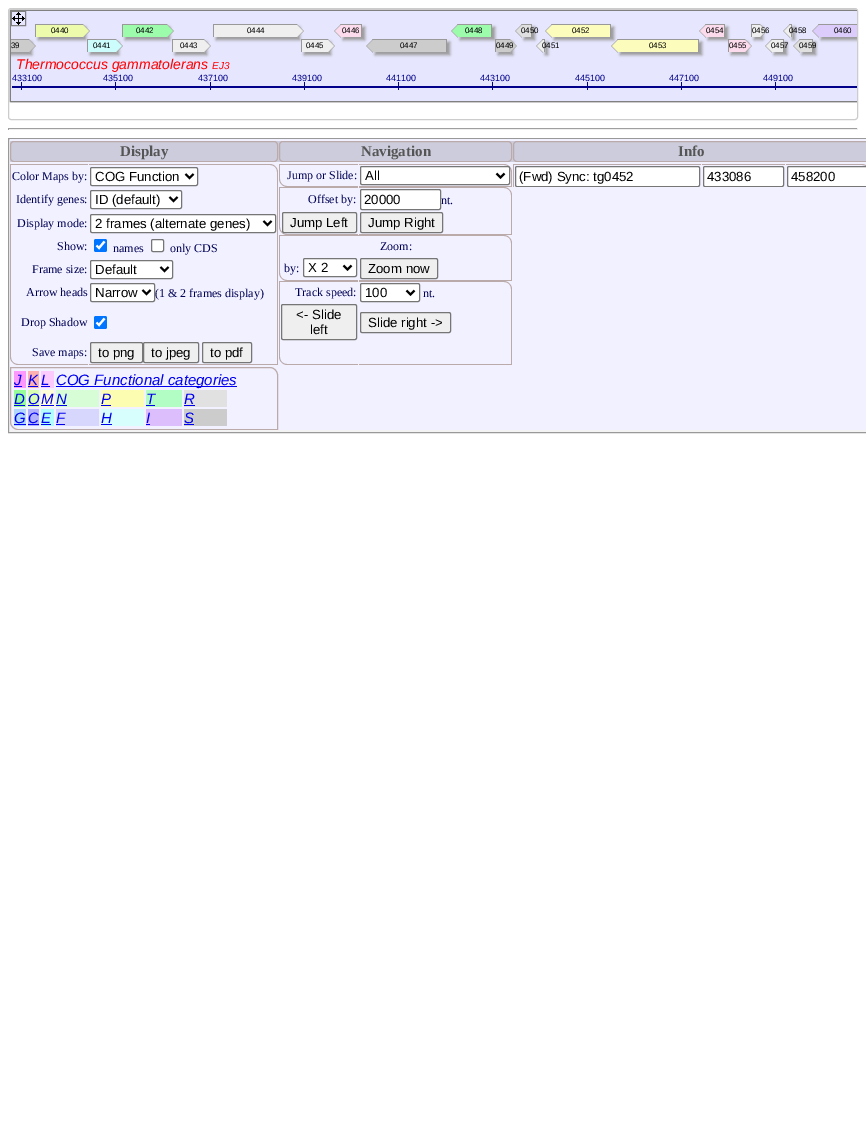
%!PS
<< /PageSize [866 1127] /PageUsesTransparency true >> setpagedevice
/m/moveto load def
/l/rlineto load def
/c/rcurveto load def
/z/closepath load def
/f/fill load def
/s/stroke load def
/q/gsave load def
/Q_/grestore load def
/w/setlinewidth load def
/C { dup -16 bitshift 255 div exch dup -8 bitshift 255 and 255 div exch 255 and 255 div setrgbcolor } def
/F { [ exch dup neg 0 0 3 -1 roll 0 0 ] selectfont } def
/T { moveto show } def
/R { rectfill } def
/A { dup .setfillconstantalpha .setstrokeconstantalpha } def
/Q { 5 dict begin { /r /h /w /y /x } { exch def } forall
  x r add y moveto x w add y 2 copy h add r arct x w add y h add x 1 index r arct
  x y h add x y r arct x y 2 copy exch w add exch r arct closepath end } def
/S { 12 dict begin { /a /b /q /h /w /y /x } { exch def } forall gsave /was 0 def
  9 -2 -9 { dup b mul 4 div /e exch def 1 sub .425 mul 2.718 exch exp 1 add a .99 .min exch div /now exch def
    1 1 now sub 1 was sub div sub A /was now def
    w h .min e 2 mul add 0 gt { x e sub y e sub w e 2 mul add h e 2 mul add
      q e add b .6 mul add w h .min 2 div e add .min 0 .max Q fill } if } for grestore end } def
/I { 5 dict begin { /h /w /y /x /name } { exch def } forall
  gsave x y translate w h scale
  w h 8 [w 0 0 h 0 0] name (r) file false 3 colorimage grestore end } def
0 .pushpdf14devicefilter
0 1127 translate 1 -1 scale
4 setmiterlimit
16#FFFFFF C
0 0 866 1127 R
16#CCCCCC C
8.5 8.5 849 111 2.5 Q s
12 9 m -2 0 -3 1 -3 3 c 0 88 l 0 2 1 3 3 3 c 845 0 l 0 -1 l -845 0 l -1 0 -2 -1 -2 -2 c 0 -88 l 0 -1 1 -2 2 -2 c 845 0 l -2 -1 l z f
16#E6E6FF C
11 11 846 90 R
16#808080 C
10 10 m 0 92 l 847 0 l 0 -1 l -846 0 l 0 -90 l 846 0 l 0 -1 l z f
11.5 11.5 14 14 rectstroke
(1.rgb) 12 12 13 13 I
16#999999 C
38 27 48 13 0 1.5 1 S
90 42 29 13 0 1.5 1 S
16#AAAAAA C
83 38 m 0 -14 l 7 7 l z f
16#999999 C
125 27 45 13 0 1.5 1 S
175 42 32 13 0 1.5 1 S
16#AAAAAA C
167 38 m 0 -14 l 7 7 l z f
16#999999 C
216 27 84 13 0 1.5 1 S
304 42 27 13 0 1.5 1 S
16#AAAAAA C
297 38 m 0 -14 l 7 7 l z f
16#999999 C
343 27 22 13 0 1.5 1 S
340 24 22 1 R
16#AAAAAA C
341 24 m 0 14 l -7 -7 l z f
16#999999 C
460 27 35 13 0 1.5 1 S
457 24 35 1 R
375 42 75 13 0 1.5 1 S
16#AAAAAA C
458 24 m 0 14 l -7 -7 l z f
16#999999 C
524 27 11 13 0 1.5 1 S
521 24 11 1 R
498 42 15 13 0 1.5 1 S
16#AAAAAA C
522 24 m 0 14 l -7 -7 l z f
16#999999 C
554 27 60 13 0 1.5 1 S
551 24 60 1 R
545 42 3 13 0 1.5 1 S
16#AAAAAA C
552 24 m 0 14 l -7 -7 l z f
16#999999 C
708 27 20 13 0 1.5 1 S
705 24 20 1 R
620 42 82 13 0 1.5 1 S
16#AAAAAA C
706 24 m 0 14 l -7 -7 l z f
16#999999 C
754 27 9 13 0 1.5 1 S
16#AAAAAA C
760 38 m 0 -14 l 7 7 l z f
16#999999 C
792 27 3 13 0 1.5 1 S
774 42 13 13 0 1.5 1 S
16#EFEFEF C
790 24 1 13 R
16#999999 C
789 24 3 1 R
16#AAAAAA C
790 24 m 0 14 l -7 -7 l z f
q
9 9 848 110 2 Q clip newpath
16#999999 C
821 27 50 13 0 1.5 1 S
Q_
16#999999 C
818 24 39 1 R
802 42 14 13 0 1.5 1 S
16#AAAAAA C
819 24 m 0 14 l -7 -7 l z f
q
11 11 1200 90 rectclip
16#999999 C
-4 42 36 13 0 1.5 1 S
Q_
16#ECFCAC C
36 25 47 12 R
16#999999 C
35 24 48 1 R
35 24 1 13 R
/LiberationSans-Regular 8 F
16#000000 C
(0440) 51 33 T
16#ECFCAC C
83 37 m 0 -12 l 6 6 l z f
16#9CFCAC C
123 25 44 12 R
16#999999 C
122 24 45 1 R
122 24 1 13 R
16#000000 C
(0442) 136 33 T
16#9CFCAC C
167 37 m 0 -12 l 6 6 l z f
16#EFEFEF C
214 25 83 12 R
16#999999 C
213 24 84 1 R
213 24 1 13 R
16#000000 C
(0444) 247 33 T
16#EFEFEF C
297 37 m 0 -12 l 6 6 l z f
16#FCDCEC C
341 25 m 0 12 l -6 -6 l z f
341 25 20 12 R
16#999999 C
361 24 1 13 R
16#000000 C
(0446) 342 33 T
16#9CFCAC C
458 25 m 0 12 l -6 -6 l z f
458 25 33 12 R
16#999999 C
491 24 1 13 R
16#000000 C
(0448) 465 33 T
16#E0E0E0 C
522 25 m 0 12 l -6 -6 l z f
522 25 9 12 R
16#999999 C
531 24 1 13 R
16#000000 C
(0450) 521 33 T
16#FCFCBC C
552 25 m 0 12 l -6 -6 l z f
552 25 58 12 R
16#999999 C
610 24 1 13 R
16#000000 C
(0452) 572 33 T
16#FCDCEC C
706 25 m 0 12 l -6 -6 l z f
706 25 18 12 R
16#999999 C
724 24 1 13 R
16#000000 C
(0454) 706 33 T
16#EFEFEF C
760 37 m 0 -12 l 6 6 l z f
790 25 m 0 12 l -6 -6 l z f
16#DCCCFC C
819 25 m 0 12 l -6 -6 l z f
16#999999 C
731 42 17 13 0 1.5 1 S
16#EFEFEF C
752 25 8 12 R
16#999999 C
751 24 9 1 R
751 24 1 13 R
16#000000 C
(0456) 752 33 T
16#999999 C
791 24 1 13 R
16#000000 C
(0458) 789 33 T
16#DCCCFC C
819 25 38 12 R
16#000000 C
(0460) 834 33 T
16#AAAAAA C
29 53 m 0 -14 l 7 7 l z f
116 53 m 0 -14 l 7 7 l z f
204 53 m 0 -14 l 7 7 l z f
328 53 m 0 -14 l 7 7 l z f
16#999999 C
372 39 75 1 R
16#AAAAAA C
373 39 m 0 14 l -7 -7 l z f
510 53 m 0 -14 l 7 7 l z f
16#EFEFEF C
543 39 1 13 R
16#999999 C
542 39 3 1 R
16#AAAAAA C
543 39 m 0 14 l -7 -7 l z f
16#999999 C
617 39 82 1 R
16#AAAAAA C
618 39 m 0 14 l -7 -7 l z f
745 53 m 0 -14 l 7 7 l z f
16#999999 C
771 39 13 1 R
16#AAAAAA C
772 39 m 0 14 l -7 -7 l z f
16#999999 C
799 39 14 1 R
16#AAAAAA C
800 39 m 0 14 l -7 -7 l z f
16#CCCCCC C
11 40 18 12 R
16#999999 C
11 39 18 1 R
16#000000 C
(39) 11 48 T
16#CCCCCC C
29 52 m 0 -12 l 6 6 l z f
16#CCFCFC C
88 40 28 12 R
16#999999 C
87 39 29 1 R
87 39 1 13 R
16#000000 C
(0441) 93 48 T
16#CCFCFC C
116 52 m 0 -12 l 6 6 l z f
16#EFEFEF C
173 40 31 12 R
16#999999 C
172 39 32 1 R
172 39 1 13 R
16#000000 C
(0443) 180 48 T
16#EFEFEF C
204 52 m 0 -12 l 6 6 l z f
302 40 26 12 R
16#999999 C
301 39 27 1 R
301 39 1 13 R
16#000000 C
(0445) 306 48 T
16#EFEFEF C
328 52 m 0 -12 l 6 6 l z f
16#CCCCCC C
373 40 m 0 12 l -6 -6 l z f
373 40 73 12 R
16#999999 C
446 39 1 13 R
16#000000 C
(0447) 400 48 T
16#CCCCCC C
510 52 m 0 -12 l 6 6 l z f
16#EFEFEF C
543 40 m 0 12 l -6 -6 l z f
16#FCFCBC C
618 40 m 0 12 l -6 -6 l z f
16#FCDCEC C
745 52 m 0 -12 l 6 6 l z f
16#EFEFEF C
772 40 m 0 12 l -6 -6 l z f
16#E0E0E0 C
800 40 m 0 12 l -6 -6 l z f
16#CCCCCC C
496 40 14 12 R
16#999999 C
495 39 15 1 R
495 39 1 13 R
16#000000 C
(0449) 496 48 T
16#999999 C
544 39 1 13 R
16#000000 C
(0451) 542 48 T
16#FCFCBC C
618 40 80 12 R
16#999999 C
698 39 1 13 R
16#000000 C
(0453) 649 48 T
16#FCDCEC C
729 40 16 12 R
16#999999 C
728 39 17 1 R
728 39 1 13 R
16#000000 C
(0455) 729 48 T
16#EFEFEF C
772 40 11 12 R
16#999999 C
783 39 1 13 R
16#000000 C
(0457) 771 48 T
16#E0E0E0 C
800 40 12 12 R
16#999999 C
812 39 1 13 R
16#000000 C
(0459) 799 48 T
/LiberationSans-Italic 14 F
16#FF0000 C
(Thermococcus gammatolerans) 16 69 T
/LiberationSans-Italic 10 F
(EJ3) 212 69 T
/LiberationSans-Regular 9 F
16#00008B C
(433100) 12 81 T
(435100) 103 81 T
(437100) 198 81 T
(439100) 292 81 T
(441100) 386 81 T
(443100) 480 81 T
(445100) 575 81 T
(447100) 669 81 T
(449100) 763 81 T
21 82 1 8 R
115 82 1 8 R
210 82 1 8 R
304 82 1 8 R
398 82 1 8 R
492 82 1 8 R
587 82 1 8 R
681 82 1 8 R
775 82 1 8 R
12 86 845 2 R
16#9F9F9F C
8 128 850 1 R
16#EEEEEE C
857 128 1 2 R
8 129 850 1 R
16#9F9F9F C
8 128 1 2 R
16#999999 C
8.5 138.5 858 294 rectstroke
16#F1F1FF C
10 139 856 2 R
16#CCCCDD C
10 141 856 21 R
16#BBAAAA C
10.5 141.5 267 20 3.5 Q s
/LiberationSerif-Bold 15 F
16#555555 C
(Display) 120 156 T
16#BBAAAA C
279.5 141.5 232 20 3.5 Q s
16#555555 C
(Navigation) 361 156 T
16#BBAAAA C
513.5 141.5 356 20 3.5 Q s
16#555555 C
(Info) 678 156 T
16#F1F1FF C
10 162 856 2 R
11 164 855 23 R
16#BBAAAA C
10 164 78 1 R
10 164 1 177 R
/LiberationSerif-Regular 12 F
16#000055 C
(Color Maps by:) 12 180 T
16#BBAAAA C
89 164 m 181 0 l 4 0 8 4 8 8 c 0 15 l -189 0 l z 89 165 m 181 0 l 4 0 7 3 7 7 c 0 15 l -188 0 l z eofill
16#FFFFFF C
90.5 167.5 107 18 1.5 Q q f Q_
16#767676 C
s
16#000000 C
2 w
185.5 174 m 4 4 l 4 -4 l s
/LiberationSans-Regular 13.25 F
(COG Function) 95 181 T
16#BBAAAA C
279 164 m 79 0 l 0 23 l -71 0 l -4 0 -8 -4 -8 -8 c z 280 165 m 78 0 l 0 21 l -71 0 l -4 0 -7 -3 -7 -7 c z eofill
/LiberationSerif-Regular 12 F
16#000055 C
(Jump or Slide:) 287 179 T
16#BBAAAA C
359 164 m 145 0 l 4 0 8 4 8 8 c 0 15 l -153 0 l z 359 165 m 145 0 l 4 0 7 3 7 7 c 0 14 l -152 0 l z eofill
16#FFFFFF C
360.5 166.5 149 18 1.5 Q q f Q_
16#767676 C
1 w
s
16#000000 C
2 w
496.5 173.5 m 4 4 l 4 -4 l s
/LiberationSans-Regular 13.25 F
(All) 365 180 T
16#BBAAAA C
513 164 m 188 0 l 0 201 l -180 0 l -4 0 -8 -4 -8 -8 c z 514 165 m 187 0 l 0 199 l -180 0 l -4 0 -7 -3 -7 -7 c z eofill
16#FFFFFF C
515.5 166.5 184 20 1.5 Q q f Q_
16#767676 C
1 w
s
16#000000 C
(\(Fwd\) Sync: tg0452) 519 181 T
16#BBAAAA C
702 164 83 1 R
16#FFFFFF C
703.5 166.5 80 20 1.5 Q q f Q_
16#767676 C
s
16#000000 C
(433086) 707 181 T
16#BBAAAA C
786 164 m 76 0 l 4 0 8 4 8 8 c 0 193 l -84 0 l z 786 165 m 76 0 l 4 0 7 3 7 7 c 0 192 l -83 0 l z eofill
16#FFFFFF C
787.5 166.5 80 20 1.5 Q q f Q_
16#767676 C
s
16#000000 C
(458200) 791 181 T
16#F1F1FF C
11 187 855 154 R
/LiberationSerif-Regular 12 F
16#000055 C
(Identify genes:) 16 203 T
16#BBAAAA C
277 187 1 154 R
16#FFFFFF C
90.5 190.5 91 18 1.5 Q q f Q_
16#767676 C
s
16#000000 C
2 w
169.5 197 m 4 4 l 4 -4 l s
/LiberationSans-Regular 13.25 F
(ID \(default\)) 95 204 T
16#BBAAAA C
279 187 79 1 R
279 187 1 24 R
/LiberationSerif-Regular 12 F
16#000055 C
(Offset by:) 308 203 T
16#BBAAAA C
359 187 m 145 0 l 4 0 8 4 8 8 c 0 16 l -153 0 l z 359 188 m 145 0 l 4 0 7 3 7 7 c 0 16 l -152 0 l z eofill
16#FFFFFF C
360.5 189.5 80 20 1.5 Q q f Q_
16#767676 C
1 w
s
/LiberationSans-Regular 13.25 F
16#000000 C
(20000) 364 204 T
/LiberationSerif-Regular 12 F
16#000055 C
(nt.) 441 204 T
(Display mode:) 17 227 T
16#FFFFFF C
90.5 214.5 185 18 1.5 Q q f Q_
16#767676 C
s
16#000000 C
2 w
263.5 221 m 4 4 l 4 -4 l s
/LiberationSans-Regular 13.25 F
(2 frames \(alternate genes\)) 95 228 T
16#BBAAAA C
279 211 m 79 0 l 0 24 l -71 0 l -4 0 -8 -4 -8 -8 c z 280 211 m 78 0 l 0 23 l -71 0 l -4 0 -7 -3 -7 -7 c z eofill
16#EFEFEF C
282.5 212.5 74 20 1.5 Q q f Q_
16#767676 C
1 w
s
16#000000 C
(Jump Left) 290 227 T
16#BBAAAA C
511 211 1 24 R
359 234 153 1 R
16#EFEFEF C
360.5 212.5 82 20 1.5 Q q f Q_
16#767676 C
s
16#000000 C
(Jump Right) 368 227 T
/LiberationSerif-Regular 12 F
16#000055 C
(Show:) 57 250 T
16#0075FF C
94 239 13 13 2 Q f
16#FFFFFF C
2.1 w
96.5 245.5 m 2.5 2.5 l 5.5 -6.5 l s
16#000055 C
(names) 113 252 T
16#FFFFFF C
151.5 239.5 12 12 1.5 Q q f Q_
16#767676 C
1 w
s
16#000055 C
(only CDS) 170 252 T
16#BBAAAA C
279 235 m 225 0 l 4 0 8 4 8 8 c 0 14 l -233 0 l z 280 236 m 224 0 l 4 0 7 3 7 7 c 0 14 l -231 0 l z eofill
16#000055 C
(Zoom:) 380 250 T
(Frame size:) 32 273 T
16#FFFFFF C
90.5 260.5 82 18 1.5 Q q f Q_
16#767676 C
s
16#000000 C
2 w
160.5 267 m 4 4 l 4 -4 l s
/LiberationSans-Regular 13.25 F
(Default) 95 274 T
16#BBAAAA C
279 257 m 79 0 l 0 24 l -71 0 l -4 0 -8 -4 -8 -8 c z 280 257 m 78 0 l 0 23 l -71 0 l -4 0 -7 -3 -7 -7 c z eofill
/LiberationSerif-Regular 12 F
16#000055 C
(by:) 284 272 T
16#FFFFFF C
303.5 258.5 53 18 1.5 Q q f Q_
16#767676 C
1 w
s
16#000000 C
2 w
343.5 265.5 m 4 4 l 4 -4 l s
/LiberationSans-Regular 13.25 F
(X 2) 308 272 T
16#BBAAAA C
511 257 1 24 R
359 280 153 1 R
16#EFEFEF C
360.5 258.5 77 20 1.5 Q q f Q_
16#767676 C
1 w
s
16#000000 C
(Zoom now) 368 273 T
/LiberationSerif-Regular 12 F
16#000055 C
(Arrow heads) 26 296 T
16#FFFFFF C
90.5 283.5 64 18 1.5 Q q f Q_
16#767676 C
s
16#000000 C
2 w
142.5 290 m 4 4 l 4 -4 l s
/LiberationSans-Regular 13.25 F
(Narrow) 95 297 T
/LiberationSerif-Regular 12 F
16#000055 C
(\(1 & 2 frames display\)) 155 297 T
16#BBAAAA C
279 281 79 1 R
279 281 1 60 R
16#000055 C
(Track speed:) 295 296 T
16#BBAAAA C
359 281 m 145 0 l 4 0 8 4 8 8 c 0 14 l -153 0 l z 359 282 m 145 0 l 4 0 7 3 7 7 c 0 14 l -152 0 l z eofill
16#FFFFFF C
360.5 283.5 59 18 1.5 Q q f Q_
16#767676 C
1 w
s
16#000000 C
2 w
406.5 290.5 m 4 4 l 4 -4 l s
/LiberationSans-Regular 13.25 F
(100) 365 297 T
/LiberationSerif-Regular 12 F
16#000055 C
(nt.) 423 297 T
(Drop Shadow) 21 326 T
16#0075FF C
94 316 13 13 2 Q f
16#FFFFFF C
2.1 w
96.5 322.5 m 2.5 2.5 l 5.5 -6.5 l s
16#EFEFEF C
281.5 304.5 75 35 1.5 Q q f Q_
16#767676 C
1 w
s
/LiberationSans-Regular 13.25 F
16#000000 C
(<- Slide) 296 319 T
(left) 310 334 T
16#BBAAAA C
511 303 1 38 R
16#EFEFEF C
360.5 312.5 90 20 1.5 Q q f Q_
16#767676 C
s
16#000000 C
(Slide right ->) 368 327 T
16#F1F1FF C
10 341 856 89 R
16#BBAAAA C
10 341 m 78 0 l 0 24 l -70 0 l -4 0 -8 -4 -8 -8 c z 11 341 m 77 0 l 0 23 l -70 0 l -4 0 -7 -3 -7 -7 c z eofill
/LiberationSerif-Regular 12 F
16#000055 C
(Save maps:) 32 356 T
16#BBAAAA C
277 341 1 24 R
89 364 189 1 R
16#EFEFEF C
90.5 342.5 52 20 1.5 Q q f Q_
16#767676 C
s
/LiberationSans-Regular 13.25 F
16#000000 C
(to png) 98 357 T
16#EFEFEF C
143.5 342.5 55 20 1.5 Q q f Q_
16#767676 C
s
16#000000 C
(to jpeg) 151 357 T
16#EFEFEF C
202.5 342.5 49 20 1.5 Q q f Q_
16#767676 C
s
16#000000 C
(to pdf) 210 357 T
16#BBAAAA C
279 341 m 79 0 l 0 24 l -71 0 l -4 0 -8 -4 -8 -8 c z 280 341 m 78 0 l 0 23 l -71 0 l -4 0 -7 -3 -7 -7 c z eofill
511 341 1 24 R
359 364 153 1 R
10.5 367.5 m 259.5 0 l 4 0 7.5 3.5 7.5 7.5 c 0 54.5 l -259.5 0 l -4 0 -7.5 -3.5 -7.5 -7.5 c z s
16#FD98FD C
14 371 12 17 R
/LiberationSans-Italic 15 F
16#0000EE C
(J) 14 385 T
14 386 8 1 R
16#FDB1B1 C
28 371 11 17 R
16#0000EE C
(K) 28 385 T
28 386 10 1 R
16#FDCAFD C
41 371 13 17 R
16#0000EE C
(L) 41 385 T
41 386 9 1 R
56 386 181 1 R
(COG Functional categories) 56 385 T
16#98FD98 C
14 390 12 17 R
16#0000EE C
(D) 14 404 T
14 405 11 1 R
16#D7FDB1 C
28 390 11 17 R
16#0000EE C
(O) 28 404 T
28 405 11 1 R
16#FDFDD7 C
41 390 13 17 R
16#0000EE C
(M) 41 404 T
41 405 13 1 R
16#D7FDD7 C
56 390 43 17 R
16#0000EE C
(N) 56 404 T
56 405 11 1 R
16#FDFDB1 C
101 390 43 17 R
16#0000EE C
(P) 101 404 T
101 405 10 1 R
16#B1FDC3 C
146 390 36 17 R
16#0000EE C
(T) 146 404 T
146 405 9 1 R
16#E1E1E1 C
184 390 43 17 R
16#0000EE C
(R) 184 404 T
184 405 11 1 R
16#B1D7FD C
14 409 12 17 R
16#0000EE C
(G) 14 423 T
14 424 12 1 R
16#B1B1FD C
28 409 11 17 R
16#0000EE C
(C) 28 423 T
28 424 11 1 R
16#B1FDFD C
41 409 13 17 R
16#0000EE C
(E) 41 423 T
41 424 10 1 R
16#D7D7FD C
56 409 43 17 R
16#0000EE C
(F) 56 423 T
56 424 9 1 R
16#D7FDFD C
101 409 43 17 R
16#0000EE C
(H) 101 423 T
101 424 11 1 R
16#DDBEFD C
146 409 36 17 R
16#0000EE C
(I) 146 423 T
146 424 4 1 R
16#CCCCCC C
184 409 43 17 R
16#0000EE C
(S) 184 423 T
184 424 10 1 R
16#F3F3F3 C
10 430 856 2 R
.poppdf14devicefilter showpage
